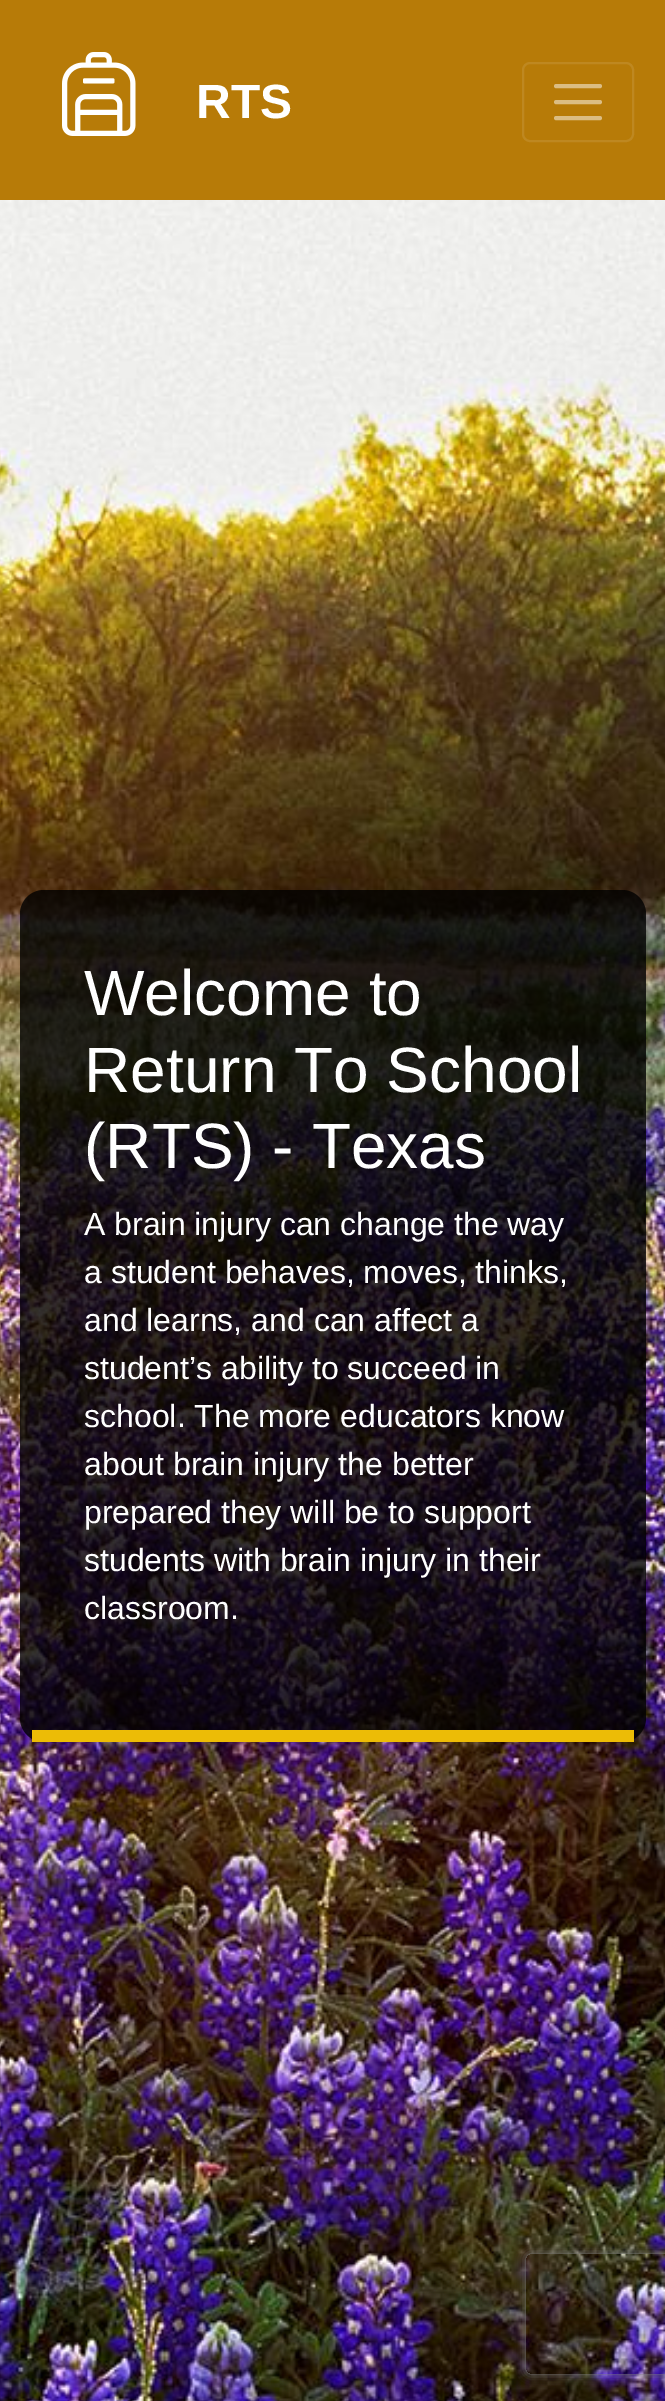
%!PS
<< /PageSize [665 2401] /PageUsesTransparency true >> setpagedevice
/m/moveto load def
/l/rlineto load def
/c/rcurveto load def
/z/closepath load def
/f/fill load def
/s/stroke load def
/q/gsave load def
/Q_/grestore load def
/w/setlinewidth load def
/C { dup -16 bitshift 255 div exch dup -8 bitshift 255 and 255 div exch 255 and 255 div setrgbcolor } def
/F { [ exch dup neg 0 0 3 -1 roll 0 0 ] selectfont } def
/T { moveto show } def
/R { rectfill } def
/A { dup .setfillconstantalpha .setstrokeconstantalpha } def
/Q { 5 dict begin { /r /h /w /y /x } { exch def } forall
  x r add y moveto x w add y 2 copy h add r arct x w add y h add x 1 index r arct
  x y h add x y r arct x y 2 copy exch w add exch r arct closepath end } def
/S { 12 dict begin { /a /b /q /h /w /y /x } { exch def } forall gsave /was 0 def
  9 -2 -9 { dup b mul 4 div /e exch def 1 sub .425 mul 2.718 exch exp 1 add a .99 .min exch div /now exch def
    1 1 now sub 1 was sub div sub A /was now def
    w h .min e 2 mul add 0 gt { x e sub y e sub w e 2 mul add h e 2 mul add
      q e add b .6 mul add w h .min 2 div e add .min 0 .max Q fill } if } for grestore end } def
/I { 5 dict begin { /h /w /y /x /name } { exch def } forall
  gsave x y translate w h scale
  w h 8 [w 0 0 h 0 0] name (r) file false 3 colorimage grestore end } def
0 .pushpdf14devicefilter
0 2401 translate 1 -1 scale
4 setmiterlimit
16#FFFFFF C
0 0 665 2401 R
16#B77B08 C
0 0 665 200 R
(1.rgb) 62 52 74 84 I
/LiberationSans-Bold 48 F
16#FFFFFF C
(RTS) 196 118 T
16#BE8821 C
2 w
523 63 110 78 7 Q s
16#DBBD84 C
4 w
1 setlinecap
556 86 m 44 0 l 556 102 m 44 0 l 556 118 m 44 0 l s
(2.rgb) 0 200 665 2201 I
0.8 A
16#000000 C
20 890 626 852 24 Q f
1 A
16#ECBC06 C
32 1730 602 12 R
/LiberationSans-Regular 64 F
16#FFFFFF C
(Welcome to) 84 1015 T
(Return To School) 84 1092 T
(\(RTS\) - Texas) 84 1168 T
/LiberationSans-Regular 32 F
(A brain injury can change the way) 84 1235 T
(a student behaves, moves, thinks,) 84 1283 T
(and learns, and can affect a) 84 1331 T
(student’s ability to succeed in) 84 1379 T
(school. The more educators know) 84 1427 T
(about brain injury the better) 84 1475 T
(prepared they will be to support) 84 1523 T
(students with brain injury in their) 84 1571 T
(classroom.) 84 1619 T
q
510 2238 m 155 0 l 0 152 l -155 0 l z 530 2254 m 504 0 l 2 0 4 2 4 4 c 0 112 l 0 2 -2 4 -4 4 c -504 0 l -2 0 -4 -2 -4 -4 c 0 -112 l 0 -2 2 -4 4 -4 c z eoclip newpath
16#808080 C
526 2254 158 120 4 5 1 S
Q_
.poppdf14devicefilter showpage
